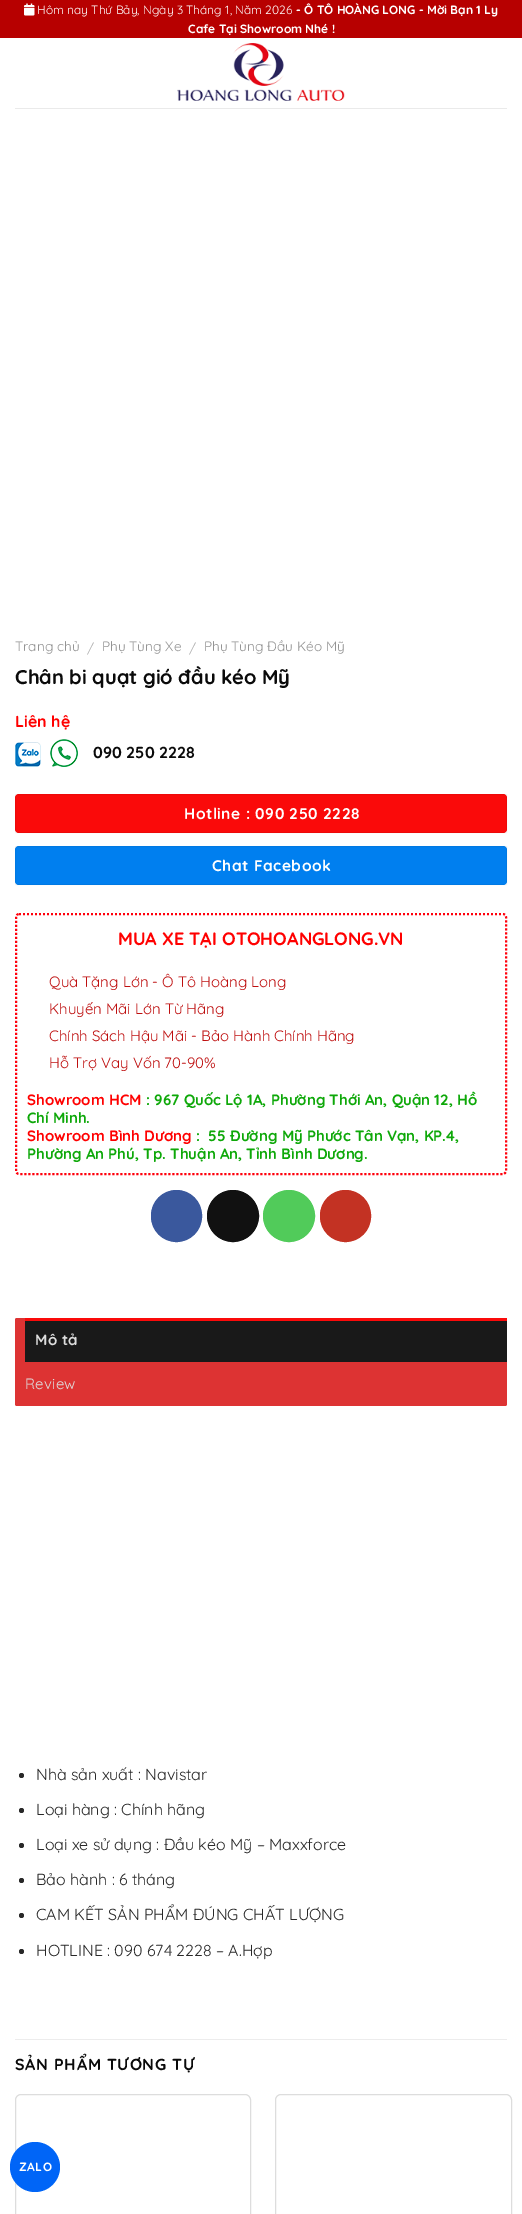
%!PS
<< /PageSize [522 2214] /PageUsesTransparency true >> setpagedevice
/m/moveto load def
/l/rlineto load def
/c/rcurveto load def
/z/closepath load def
/f/fill load def
/s/stroke load def
/q/gsave load def
/Q_/grestore load def
/w/setlinewidth load def
/C { dup -16 bitshift 255 div exch dup -8 bitshift 255 and 255 div exch 255 and 255 div setrgbcolor } def
/F { [ exch dup neg 0 0 3 -1 roll 0 0 ] selectfont } def
/T { moveto show } def
/R { rectfill } def
/A { dup .setfillconstantalpha .setstrokeconstantalpha } def
/O { newpath 0 360 arc closepath } def
/Q { 5 dict begin { /r /h /w /y /x } { exch def } forall
  x r add y moveto x w add y 2 copy h add r arct x w add y h add x 1 index r arct
  x y h add x y r arct x y 2 copy exch w add exch r arct closepath end } def
/I { 5 dict begin { /h /w /y /x /name } { exch def } forall
  gsave x y translate w h scale
  w h 8 [w 0 0 h 0 0] name (r) file false 3 colorimage grestore end } def
0 .pushpdf14devicefilter
0 2214 translate 1 -1 scale
4 setmiterlimit
16#FFFFFF C
0 0 522 2214 R
16#B70000 C
0 0 522 38 R
(1.rgb) 24 3 11 13 I
/Quicksand-Regular 12 F
16#FFFFFF C
(Hôm nay Thứ Bảy, Ngày 3 Tháng 1, Năm 2026) 37 14 T
/Quicksand-Bold 12 F
(- Ô TÔ HOÀNG LONG - Mời Bạn 1 Ly) 296 14 T
(Cafe Tại Showroom Nhé !) 188 33 T
(2.rgb) 177 43 168 58 I
16#EAEAEA C
15 108 492 1 R
/Quicksand-Regular 13.6 F
16#949494 C
(Trang chủ) 15 651 T
16#B2B2B2 C
(/) 87 653 T
16#949494 C
(Phụ Tùng Xe) 102 651 T
16#B2B2B2 C
(/) 189 653 T
16#949494 C
(Phụ Tùng Đầu Kéo Mỹ) 204 651 T
/Quicksand-Bold 20 F
16#0A0A0A C
(Chân bi quạt gió đầu kéo Mỹ) 15 684 T
/Quicksand-Bold 16 F
16#FF0000 C
(Liên hệ) 15 727 T
(3.rgb) 15 742 26 25 I
(4.rgb) 50 739 28 28 I
16#0A0A0A C
(090 250 2228) 93 758 T
16#FA0A0A C
15 794 492 39 4 Q f
0.05 A
16#000000 C
15.5 794.5 491 38 rectstroke
/Quicksand-Bold 15.5 F
1 A
16#FFFFFF C
184 819 m .5 0 (Hotline : 090 250 2228) ashow
16#007FEF C
15 846 492 39 4 Q f
0.05 A
16#000000 C
15.5 846.5 491 38 rectstroke
1 A
16#FFFFFF C
212 871 m .5 0 (Chat Facebook) ashow
16#FF000C C
2 w
[2 2] 0 setdash
19 914 m 484 0 l 1.5 0 3 1.5 3 3 c 0 254 l 0 1.5 -1.5 3 -3 3 c -484 0 l -1.5 0 -3 -1.5 -3 -3 c 0 -254 l 0 -1.5 1.5 -3 3 -3 c z s
/Quicksand-Bold 18 F
16#FF0000 C
(MUA XE TẠI OTOHOANGLONG.VN) 118 945 T
/Quicksand-Regular 15 F
16#BE0F0F C
(Quà Tặng Lớn - Ô Tô Hoàng Long) 49 987 T
(Khuyến Mãi Lớn Từ Hãng) 49 1014 T
(Chính Sách Hậu Mãi - Bảo Hành Chính Hãng) 49 1041 T
(Hỗ Trợ Vay Vốn 70-90%) 49 1068 T
/Quicksand-Bold 15 F
16#FF0000 C
(Showroom HCM) 27 1105 T
16#0EA809 C
(: 967 Quốc Lộ 1A, Phường Thới An, Quận 12, Hồ) 146 1105 T
(Chí Minh.) 27 1123 T
16#FF0000 C
(Showroom Bình Dương) 27 1141 T
16#0EA809 C
(:  55 Đường Mỹ Phước Tân Vạn, KP.4,) 196 1141 T
(Phường An Phú, Tp. Thuận An, Tỉnh Bình Dương.) 27 1159 T
16#3A589D C
151.5 1190.5 50 51 25 Q q f Q_
1 w
[] 0 setdash
s
16#111111 C
233 1216 25.5 O q f Q_
s
16#51CB5A C
289 1216 25.5 O q f Q_
s
16#C33223 C
320.5 1190.5 50 51 25 Q q f Q_
s
16#ECECEC C
15 1318 2 1 R
16#DD3333 C
15 1318 492 88 2 Q f
16#191919 C
25 1321 482 41 R
16#FA0A0A C
25 1318 482 3 R
16#DDDDDD C
35 1345 m .25 0 (Mô tả) ashow
/Quicksand-Regular 15 F
25 1389 m .25 0 (Review) ashow
16#282828 C
21.5 1775.5 2.5 O f
/Quicksand-Regular 16 F
(Nhà sản xuất : Navistar) 36 1780 T
21.5 1810.5 2.5 O f
(Loại hàng : Chính hãng) 36 1815 T
21.5 1845.5 2.5 O f
(Loại xe sử dụng : Đầu kéo Mỹ – Maxxforce) 36 1850 T
21.5 1880.5 2.5 O f
(Bảo hành : 6 tháng) 36 1885 T
21.5 1915.5 2.5 O f
(CAM KẾT SẢN PHẨM ĐÚNG CHẤT LƯỢNG) 36 1920 T
21.5 1951.5 2.5 O f
(HOTLINE : 090 674 2228 – A.Hợp) 36 1956 T
16#ECECEC C
15 2039 492 1 R
/Quicksand-Bold 16 F
16#0A0A0A C
15 2070 m .75 0 (SẢN PHẨM TƯƠNG TỰ) ashow
16#DDDDDD C
15.5 2094.5 235 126 5.5 Q s
275.5 2094.5 236 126 5.5 Q s
16#0065F7 C
35 2167 25 O f
/Quicksand-Bold 12 F
16#FFFFFF C
19 2171 m .5 0 (ZALO) ashow
.poppdf14devicefilter showpage
